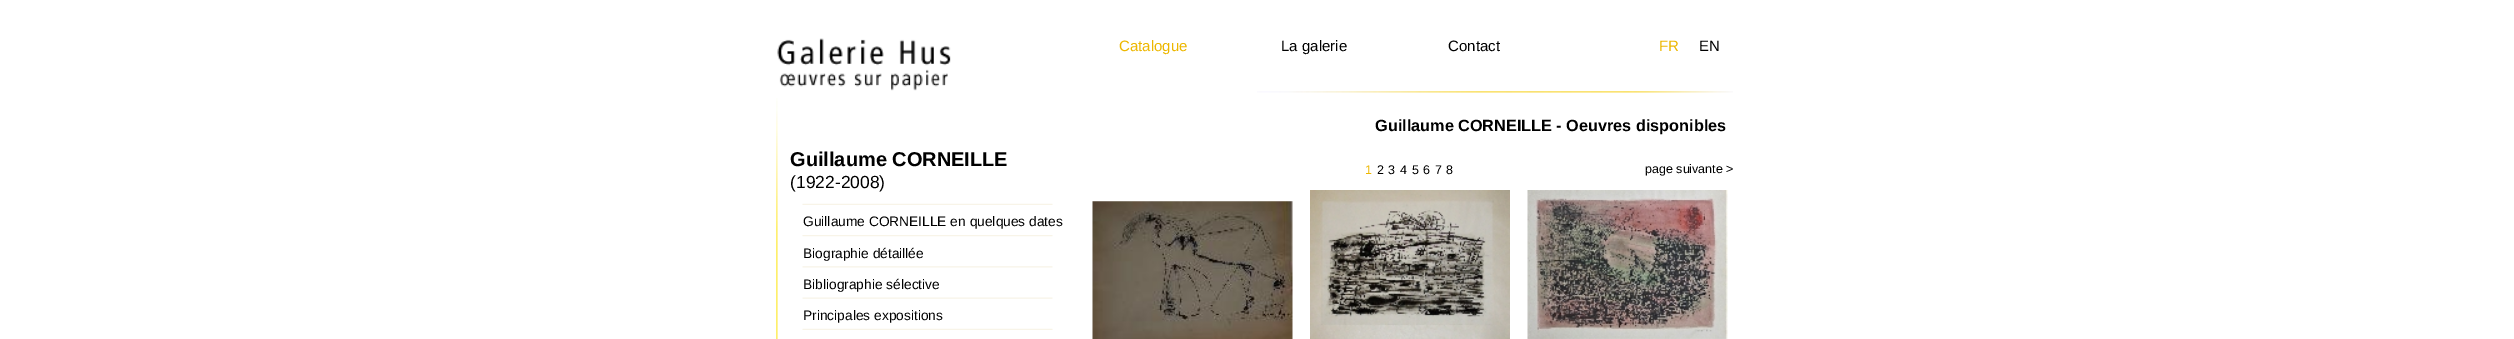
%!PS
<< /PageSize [2514 339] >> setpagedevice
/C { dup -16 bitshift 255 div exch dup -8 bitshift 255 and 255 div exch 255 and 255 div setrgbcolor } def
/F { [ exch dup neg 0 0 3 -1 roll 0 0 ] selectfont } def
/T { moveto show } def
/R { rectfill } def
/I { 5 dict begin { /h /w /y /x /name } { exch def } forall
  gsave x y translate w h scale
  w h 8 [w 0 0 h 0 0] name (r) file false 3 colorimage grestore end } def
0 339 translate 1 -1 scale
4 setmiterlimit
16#FFFFFF C
0 0 2514 339 R
(1.rgb) 777 38 174 53 I
/LiberationSans-Regular 15 F
16#EDB700 C
(Catalogue) 1119 51 T
16#000000 C
(La galerie) 1281 51 T
(Contact) 1448 51 T
16#EDB700 C
(FR) 1659 51 T
16#000000 C
(EN) 1699 51 T
(2.rgb) 776 98 2 241 I
/LiberationSans-Bold 20 F
(Guillaume CORNEILLE) 790 166 T
/LiberationSans-Regular 17.5 F
(\(1922-2008\)) 790 188 T
(3.rgb) 802 203 251 2 I
/LiberationSans-Regular 13.75 F
(Guillaume CORNEILLE en quelques dates) 803 226 T
(4.rgb) 802 235 251 2 I
(Biographie détaillée) 803 258 T
(5.rgb) 802 266 251 2 I
(Bibliographie sélective) 803 289 T
(6.rgb) 802 297 251 2 I
(Principales expositions) 803 320 T
(3.rgb) 802 328 251 2 I
(7.rgb) 1257 91 476 2 I
/LiberationSans-Bold 16.25 F
(Guillaume CORNEILLE - Oeuvres disponibles) 1375 131 T
/LiberationSans-Regular 12.5 F
16#EDB700 C
(1) 1365 174 T
16#000000 C
(2) 1377 174 T
(3) 1388 174 T
(4) 1400 174 T
(5) 1412 174 T
(6) 1423 174 T
(7) 1435 174 T
(8) 1446 174 T
(page suivante >) 1645 173 T
(8.rgb) 1092 201 201 138 I
(9.rgb) 1310 190 200 149 I
(10.rgb) 1527 190 201 149 I
showpage
